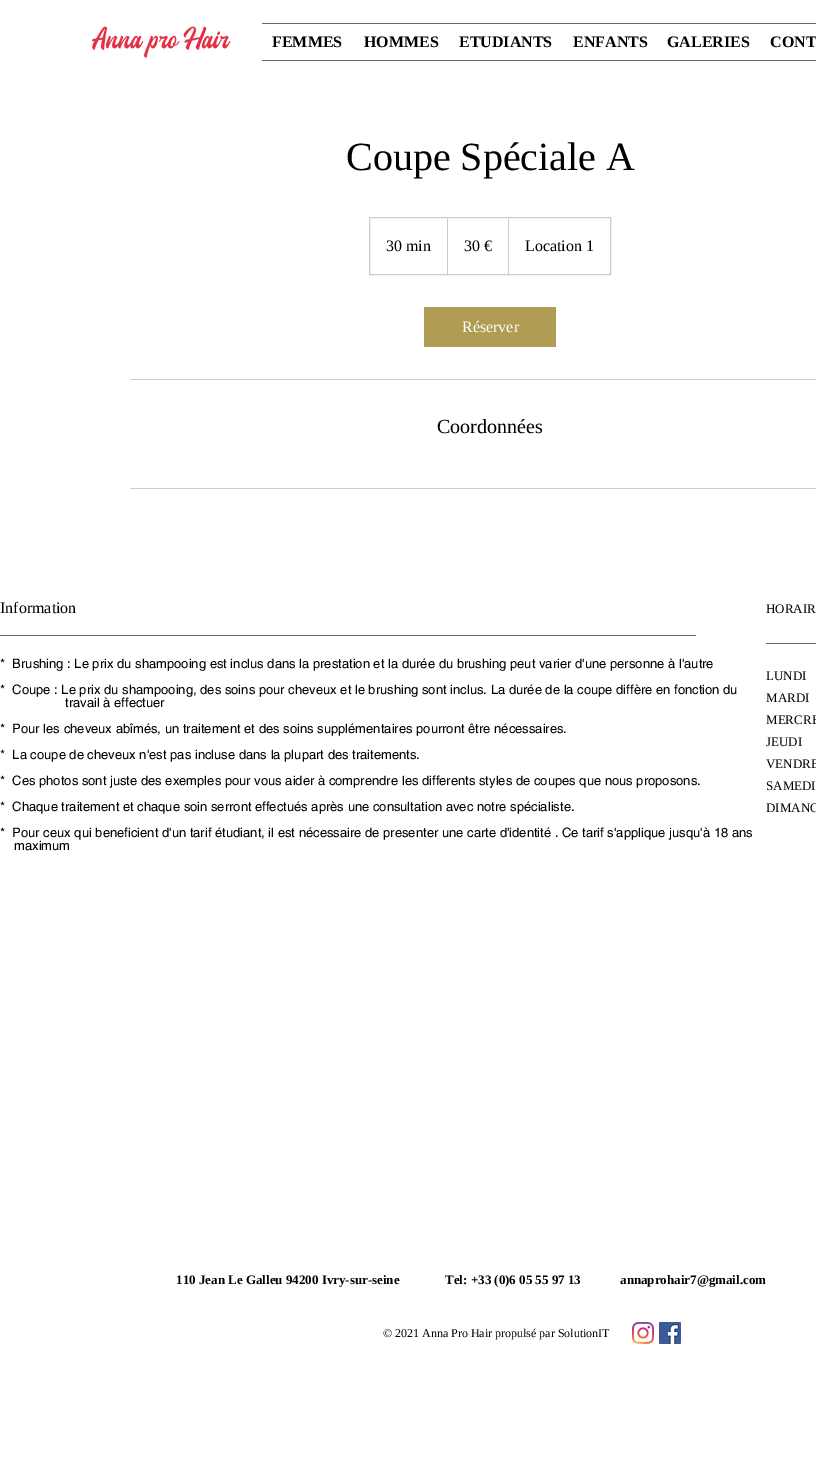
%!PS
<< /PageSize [816 1460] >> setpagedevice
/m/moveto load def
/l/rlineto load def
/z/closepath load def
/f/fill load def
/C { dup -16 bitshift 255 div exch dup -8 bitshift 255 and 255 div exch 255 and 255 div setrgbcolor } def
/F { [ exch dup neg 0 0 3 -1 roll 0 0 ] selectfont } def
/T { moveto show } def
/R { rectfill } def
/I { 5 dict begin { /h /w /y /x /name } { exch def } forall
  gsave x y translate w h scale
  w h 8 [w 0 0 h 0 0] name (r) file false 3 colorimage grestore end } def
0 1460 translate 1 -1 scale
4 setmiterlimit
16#FFFFFF C
0 0 816 1460 R
(1.rgb) 92 26 139 32 I
16#666666 C
262 23 554 1 R
262 60 554 1 R
/LiberationSerif-Bold 16 F
16#000000 C
(FEMMES) 272 47 T
(HOMMES) 364 47 T
(ETUDIANTS) 459 47 T
(ENFANTS) 573 47 T
(GALERIES) 667 47 T
(CONT) 770 47 T
/LiberationSerif-Regular 40 F
(Coupe Spéciale A) 346 170 T
16#CCCCCC C
369.5 217.5 241 57 rectstroke
/LiberationSerif-Regular 16 F
16#000000 C
(30 min) 386 251 T
16#CCCCCC C
447 274 m 0 -57 l 1 1 l 0 56 l z f
16#000000 C
(30 €) 464 251 T
16#CCCCCC C
508 274 m 0 -57 l 1 1 l 0 56 l z f
16#000000 C
(Location 1) 525 251 T
16#B09C53 C
424 307 132 40 R
16#FFFFFF C
(Réserver) 462 332 T
16#CCCCCC C
130 379 686 1 R
/LiberationSerif-Regular 20 F
16#000000 C
(Coordonnées) 437 433 T
16#CCCCCC C
130 488 686 1 R
/LiberationSerif-Regular 16 F
16#000000 C
(Information) 0 613 T
/LiberationSerif-Regular 13 F
(HORAIR) 766 613 T
16#666666 C
766 643 50 1 R
16#000000 C
(LUNDI) 766 680 T
(MARDI) 766 702 T
(MERCRE) 766 724 T
(JEUDI) 766 746 T
(VENDRE) 766 768 T
(SAMEDI) 766 790 T
(DIMANC) 766 812 T
16#666666 C
0 635 696 1 R
/helvetica-Regular 13 F
16#000000 C
(*  Brushing : Le prix du shampooing est inclus dans la prestation et la durée du brushing peut varier d'une personne à l'autre) 0 668 T
(*  Coupe : Le prix du shampooing, des soins pour cheveux et le brushing sont inclus. La durée de la coupe diffère en fonction du) 0 694 T
(travail à effectuer) 65 707 T
(*  Pour les cheveux abîmés, un traitement et des soins supplémentaires pourront être nécessaires.) 0 733 T
(*  La coupe de cheveux n'est pas incluse dans la plupart des traitements.) 0 759 T
(*  Ces photos sont juste des exemples pour vous aider à comprendre les differents styles de coupes que nous proposons.) 0 785 T
(*  Chaque traitement et chaque soin serront effectués après une consultation avec notre spécialiste.) 0 811 T
(*  Pour ceux qui beneficient d'un tarif étudiant, il est nécessaire de presenter une carte d'identité . Ce tarif s'applique jusqu'à 18 ans) 0 837 T
(maximum) 14 850 T
/LiberationSerif-Bold 13 F
(110 Jean Le Galleu 94200 Ivry-sur-seine              Tel: +33 \(0\)6 05 55 97 13) 176 1284 T
(annaprohair7@gmail.com) 620 1284 T
/LiberationSerif-Regular 12 F
(© 2021 Anna Pro Hair propulsé par SolutionIT) 383 1337 T
(2.rgb) 632 1322 22 22 I
(3.rgb) 659 1322 22 22 I
showpage
